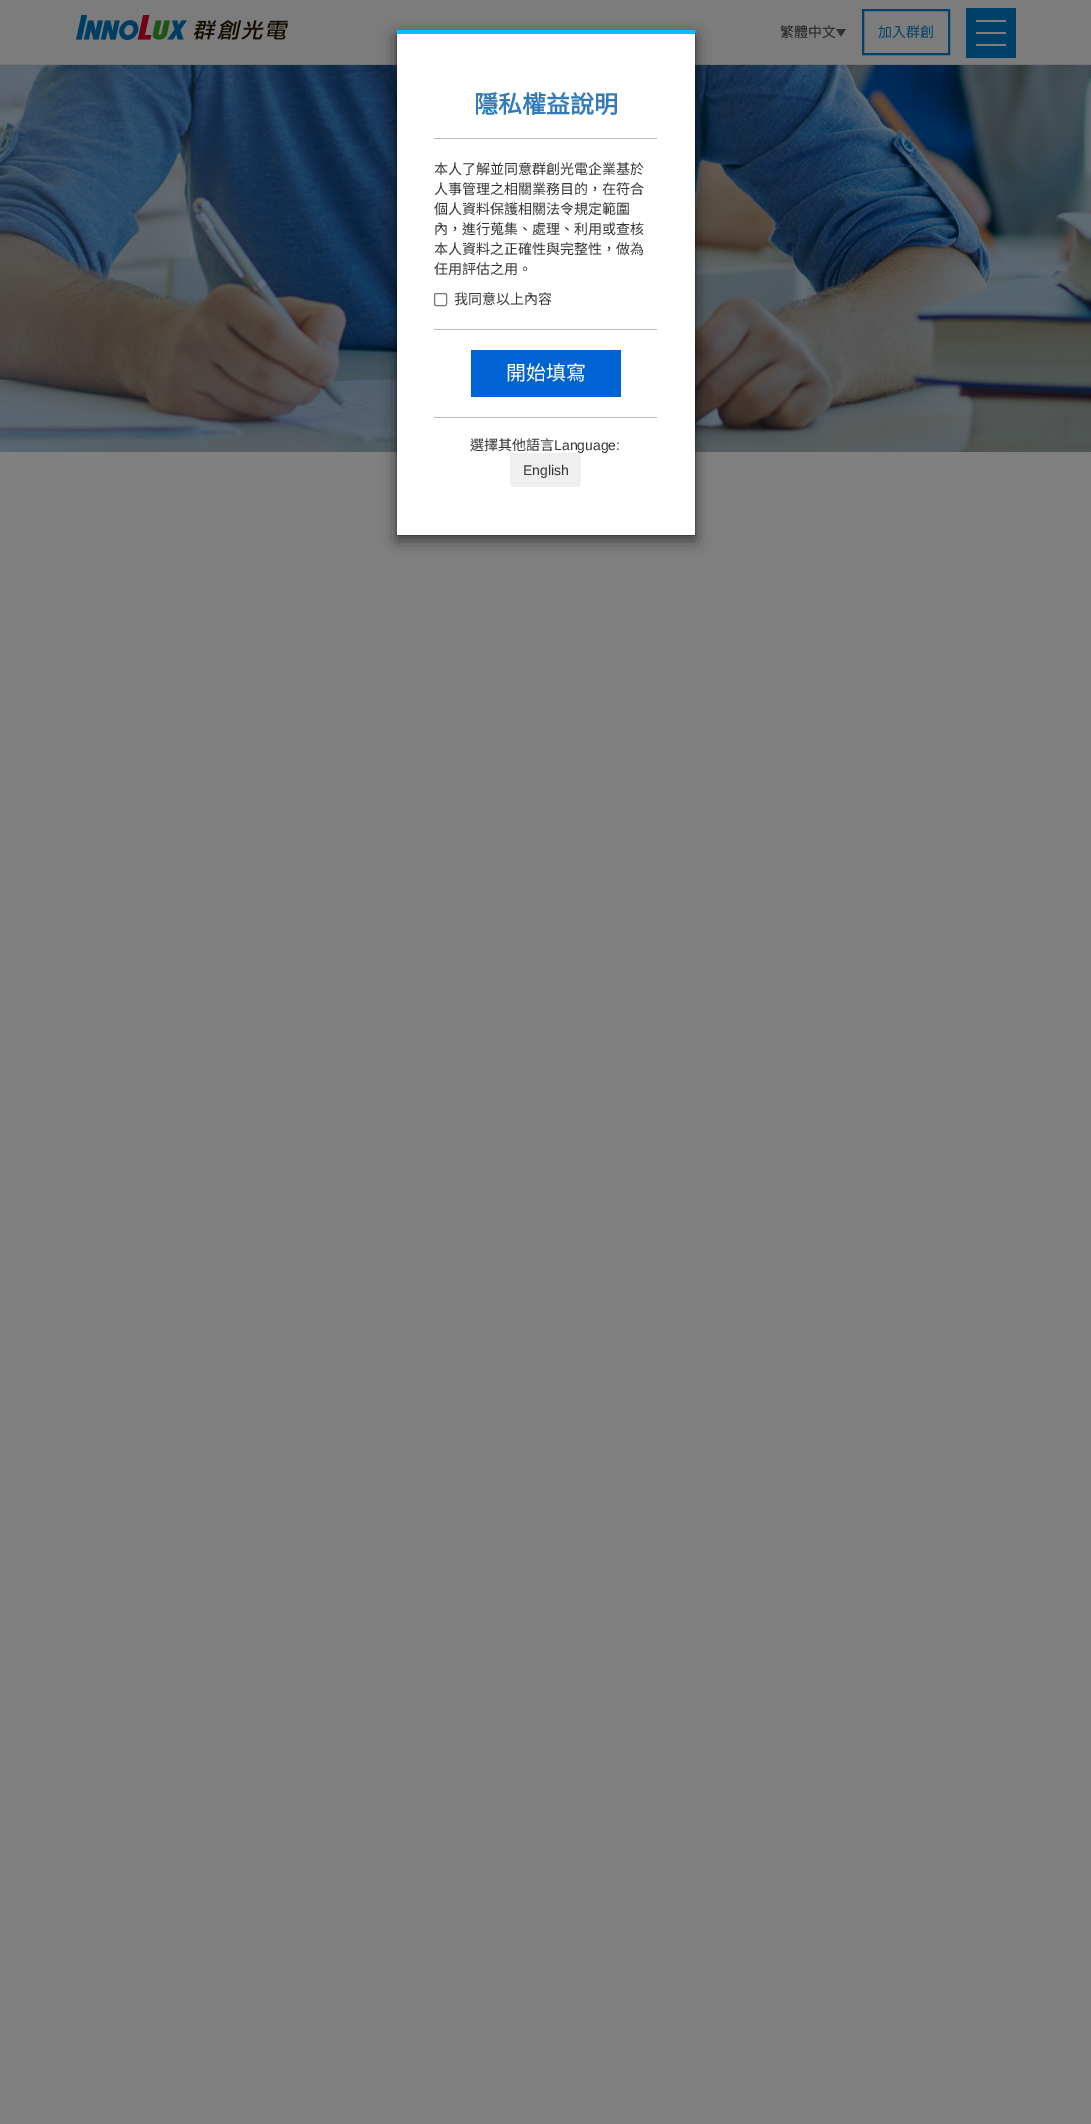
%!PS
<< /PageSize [1091 2124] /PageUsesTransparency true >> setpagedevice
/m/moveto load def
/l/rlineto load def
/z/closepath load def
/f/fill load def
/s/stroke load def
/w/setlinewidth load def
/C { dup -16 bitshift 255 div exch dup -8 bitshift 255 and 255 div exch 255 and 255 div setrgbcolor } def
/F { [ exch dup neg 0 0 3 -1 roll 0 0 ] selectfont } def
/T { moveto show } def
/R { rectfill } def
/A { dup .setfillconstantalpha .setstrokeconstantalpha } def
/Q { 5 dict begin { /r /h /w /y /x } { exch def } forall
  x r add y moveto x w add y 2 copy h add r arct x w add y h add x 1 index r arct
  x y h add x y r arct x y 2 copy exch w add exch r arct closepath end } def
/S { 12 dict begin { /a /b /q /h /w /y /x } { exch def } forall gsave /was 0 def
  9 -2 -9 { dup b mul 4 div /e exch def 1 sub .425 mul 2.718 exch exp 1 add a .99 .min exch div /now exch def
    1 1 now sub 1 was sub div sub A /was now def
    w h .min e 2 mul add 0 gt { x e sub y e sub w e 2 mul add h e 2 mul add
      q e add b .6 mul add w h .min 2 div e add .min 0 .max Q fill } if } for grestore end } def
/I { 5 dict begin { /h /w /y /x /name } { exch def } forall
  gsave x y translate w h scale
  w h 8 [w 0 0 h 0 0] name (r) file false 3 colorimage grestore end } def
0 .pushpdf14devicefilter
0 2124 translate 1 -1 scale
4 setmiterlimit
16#808080 C
0 0 1091 2124 R
16#7C7C7C C
0 0 1091 64 R
16#747474 C
0 64 1091 1 R
(1.rgb) 76 15 212 25 I
/NotoSansCJKTC-Regular 14 F
16#222222 C
(繁體中文) 780 37 T
(2.rgb) 836 29 10 8 I
16#004168 C
2 w
863 10 86 44 rectstroke
(加入群創) 878 37 T
(3.rgb) 966 8 50 50 I
(4.rgb) 0 65 1091 387 I
16#000000 C
396 35 300 506 0 7.5 .5 S
16#FFFFFF C
397 34 298 501 R
16#09BCFF C
396 30 m 300 0 l -1 4 l -298 0 l z f
0.2 A
16#000000 C
696 30 m 0 506 l -1 -1 l 0 -501 l z f
696 536 m -300 0 l 1 -1 l 298 0 l z f
396 536 m 0 -506 l 1 4 l 0 501 l z f
/NotoSansCJKTC-Bold 24 F
1 A
16#337AB7 C
(隱私權益說明) 474 113 T
16#B9B9B9 C
434 138 223 1 R
/NotoSansCJKTC-Regular 14 F
16#333333 C
(本人了解並同意群創光電企業基於) 434 174 T
(人事管理之相關業務目的，在符合) 434 194 T
(個人資料保護相關法令規定範圍) 434 214 T
(內，進行蒐集、處理、利用或查核) 434 234 T
(本人資料之正確性與完整性，做為) 434 254 T
(任用評估之用。) 434 274 T
16#767676 C
1 w
434.5 293.5 12 12 1.5 Q s
16#333333 C
(我同意以上內容) 454 304 T
16#B9B9B9 C
434 329 223 1 R
16#0063D3 C
471 350 150 47 R
/NotoSansCJKTC-Regular 20 F
16#FFFFFF C
(開始填寫) 506 380 T
16#B9B9B9 C
434 417 223 1 R
/NotoSansCJKTC-Regular 14 F
16#333333 C
(選擇其他語言) 470 450 T
/LiberationSans-Regular 14 F
(Language:) 554 450 T
16#EFEFEF C
510 453 71 34 4 Q f
16#333333 C
(English) 523 475 T
.poppdf14devicefilter showpage
